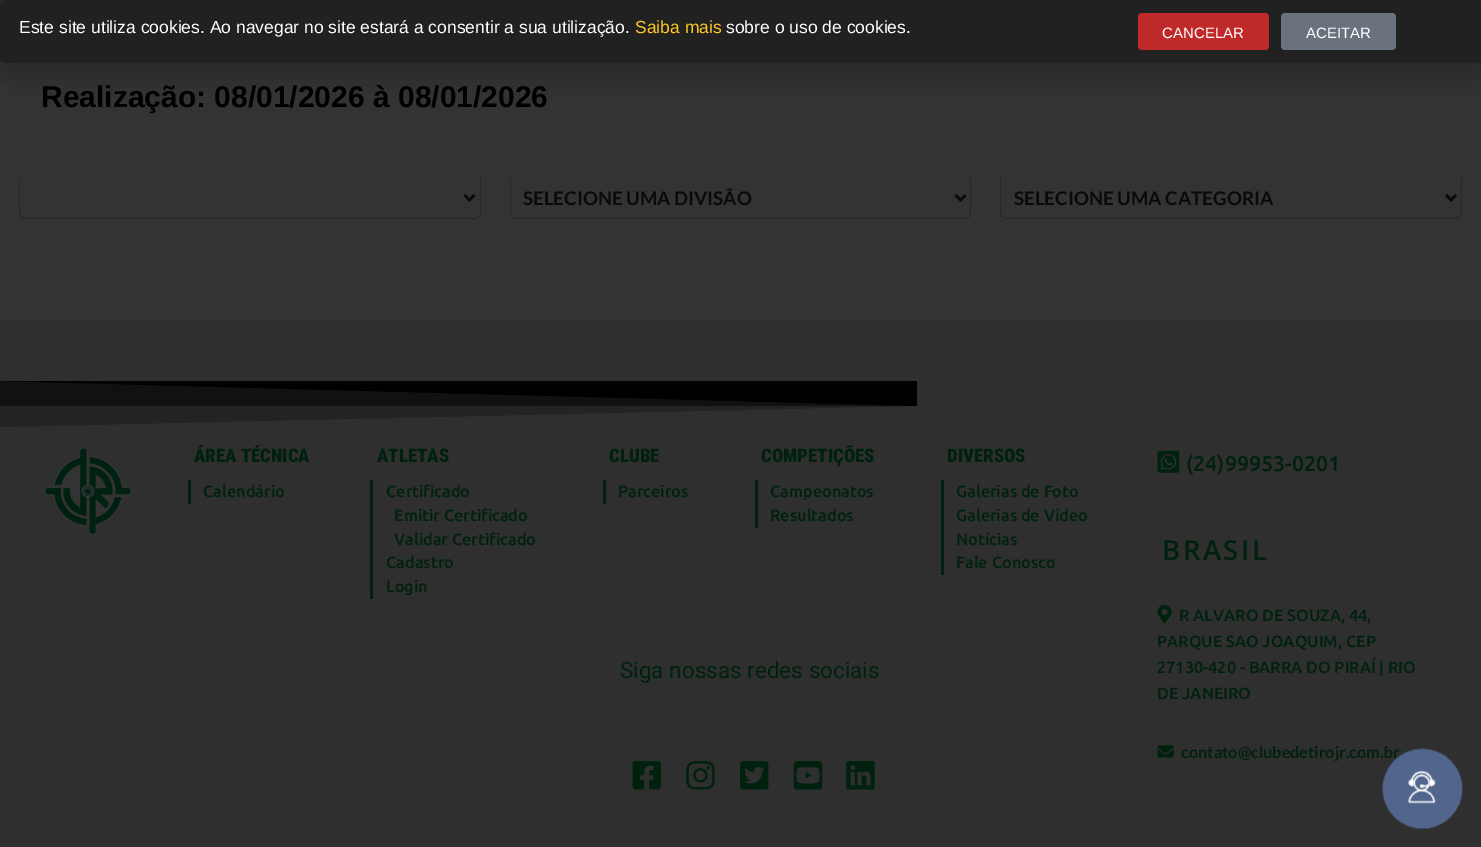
%!PS
<< /PageSize [1481 847] /PageUsesTransparency true >> setpagedevice
/m/moveto load def
/l/rlineto load def
/c/rcurveto load def
/z/closepath load def
/f/fill load def
/s/stroke load def
/w/setlinewidth load def
/C { dup -16 bitshift 255 div exch dup -8 bitshift 255 and 255 div exch 255 and 255 div setrgbcolor } def
/F { [ exch dup neg 0 0 3 -1 roll 0 0 ] selectfont } def
/T { moveto show } def
/R { rectfill } def
/A { dup .setfillconstantalpha .setstrokeconstantalpha } def
/Q { 5 dict begin { /r /h /w /y /x } { exch def } forall
  x r add y moveto x w add y 2 copy h add r arct x w add y h add x 1 index r arct
  x y h add x y r arct x y 2 copy exch w add exch r arct closepath end } def
/S { 12 dict begin { /a /b /q /h /w /y /x } { exch def } forall gsave /was 0 def
  9 -2 -9 { dup b mul 4 div /e exch def 1 sub .425 mul 2.718 exch exp 1 add a .99 .min exch div /now exch def
    1 1 now sub 1 was sub div sub A /was now def
    w h .min e 2 mul add 0 gt { x e sub y e sub w e 2 mul add h e 2 mul add
      q e add b .6 mul add w h .min 2 div e add .min 0 .max Q fill } if } for grestore end } def
/I { 5 dict begin { /h /w /y /x /name } { exch def } forall
  gsave x y translate w h scale
  w h 8 [w 0 0 h 0 0] name (r) file false 3 colorimage grestore end } def
0 .pushpdf14devicefilter
0 847 translate 1 -1 scale
4 setmiterlimit
16#333333 C
0 0 1481 847 R
16#000000 C
-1 6 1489 70 8 14.5 .2 S
16#212121 C
0 0 1481 63 4 Q f
/LiberationSans-Regular 17.5 F
16#FFFFFF C
(Este site utiliza cookies. Ao navegar no site estará a consentir a sua utilização.) 19 33 T
16#FEC726 C
(Saiba mais) 635 33 T
16#FFFFFF C
(sobre o uso de cookies.) 726 33 T
16#BF2929 C
1138 13 131 37 4 Q f
/LiberationSans-Regular 15 F
16#FFFFFF C
(CANCELAR) 1162 38 T
16#69727D C
1281 13 115 37 4 Q f
16#FFFFFF C
(ACEITAR) 1306 38 T
/LiberationSans-Bold 30 F
16#000000 C
(Realização: 08/01/2026 à 08/01/2026) 41 107 T
16#272727 C
19 178 m 462 0 l 0 34 l 0 4 -3 7 -6 7 c -450 0 l -3 0 -6 -3 -6 -7 c z 20 178 m 460 0 l 0 34 l 0 3 -2 6 -5 6 c -450 0 l -3 0 -5 -3 -5 -6 c z eofill
16#0A0A0A C
2.5 w
464.5 195 m 5 5 l 5 -5 l s
16#272727 C
510 178 m 461 0 l 0 34 l 0 4 -3 7 -6 7 c -449 0 l -3 0 -6 -3 -6 -7 c z 511 178 m 459 0 l 0 34 l 0 3 -2 6 -5 6 c -449 0 l -3 0 -5 -3 -5 -6 c z eofill
16#0A0A0A C
955.5 195 m 5 5 l 5 -5 l s
/Lato-Bold 18.75 F
(SELECIONE UMA DIVISÃO) 523 205 T
16#272727 C
1000 178 m 462 0 l 0 34 l 0 4 -2 7 -6 7 c -450 0 l -3 0 -6 -3 -6 -7 c z 1001 178 m 460 0 l 0 34 l 0 3 -2 6 -5 6 c -450 0 l -3 0 -5 -3 -5 -6 c z eofill
16#0A0A0A C
1446 195 m 5 5 l 5 -5 l s
(SELECIONE UMA CATEGORIA) 1014 205 T
16#2F2F2F C
0 319 1481 528 R
16#171717 C
0 381 916 25 R
16#000000 C
0 381 m 917 0 l 0 25 l z f
0.25 A
917 381 m -917 0 l 0 46 l 917 -21 l z f
1 A
(1.rgb) 43 447 89 89 I
/RobotoCondensed-Black 18.75 F
16#00210E C
(ÁREA TÉCNICA) 194 462 T
188 480 3 24 R
/Ubuntu-Medium 16.25 F
(Calendário) 203 497 T
/RobotoCondensed-Black 18.75 F
(ATLETAS) 377 462 T
370 480 3 119 R
/Ubuntu-Medium 16.25 F
(Certificado) 386 497 T
(Emitir Certificado) 394 521 T
(Validar Certificado) 394 545 T
(Cadastro) 386 568 T
(Login) 386 592 T
/RobotoCondensed-Black 18.75 F
(CLUBE) 609 462 T
603 480 3 24 R
/Ubuntu-Medium 16.25 F
(Parceiros) 618 497 T
/RobotoCondensed-Black 18.75 F
(COMPETIÇÕES) 761 462 T
755 480 3 48 R
/Ubuntu-Medium 16.25 F
(Campeonatos) 770 497 T
(Resultados) 770 521 T
/RobotoCondensed-Black 18.75 F
(DIVERSOS) 947 462 T
941 480 3 95 R
/Ubuntu-Medium 16.25 F
(Galerias de Foto) 956 497 T
(Galerias de Vídeo) 956 521 T
(Notícias) 956 545 T
(Fale Conosco) 956 568 T
/Roboto-Regular 22.5 F
(Siga nossas redes sociais) 620 678 T
(2.rgb) 632 761 29 29 I
(3.rgb) 686 761 29 29 I
(4.rgb) 740 761 29 29 I
(5.rgb) 793 761 30 29 I
(6.rgb) 846 761 29 29 I
(7.rgb) 1157 450 23 23 I
/Ubuntu-Medium 21.25 F
(\(24\)99953-0201) 1186 471 T
/OpenSans-SemiBold 27.5 F
1162 560 m 2.5 0 (BRASIL) ashow
(8.rgb) 1157 604 15 20 I
/Ubuntu-Medium 16.25 F
(R ALVARO DE SOUZA, 44,) 1179 621 T
(PARQUE SAO JOAQUIM, CEP) 1157 647 T
(27130-420 - BARRA DO PIRAÍ | RIO) 1157 673 T
(DE JANEIRO) 1157 699 T
(9.rgb) 1157 745 17 13 I
/Lato-Bold 16.25 F
(contato@clubedetirojr.com.br) 1181 758 T
(10.rgb) 1382 748 81 81 I
.poppdf14devicefilter showpage
